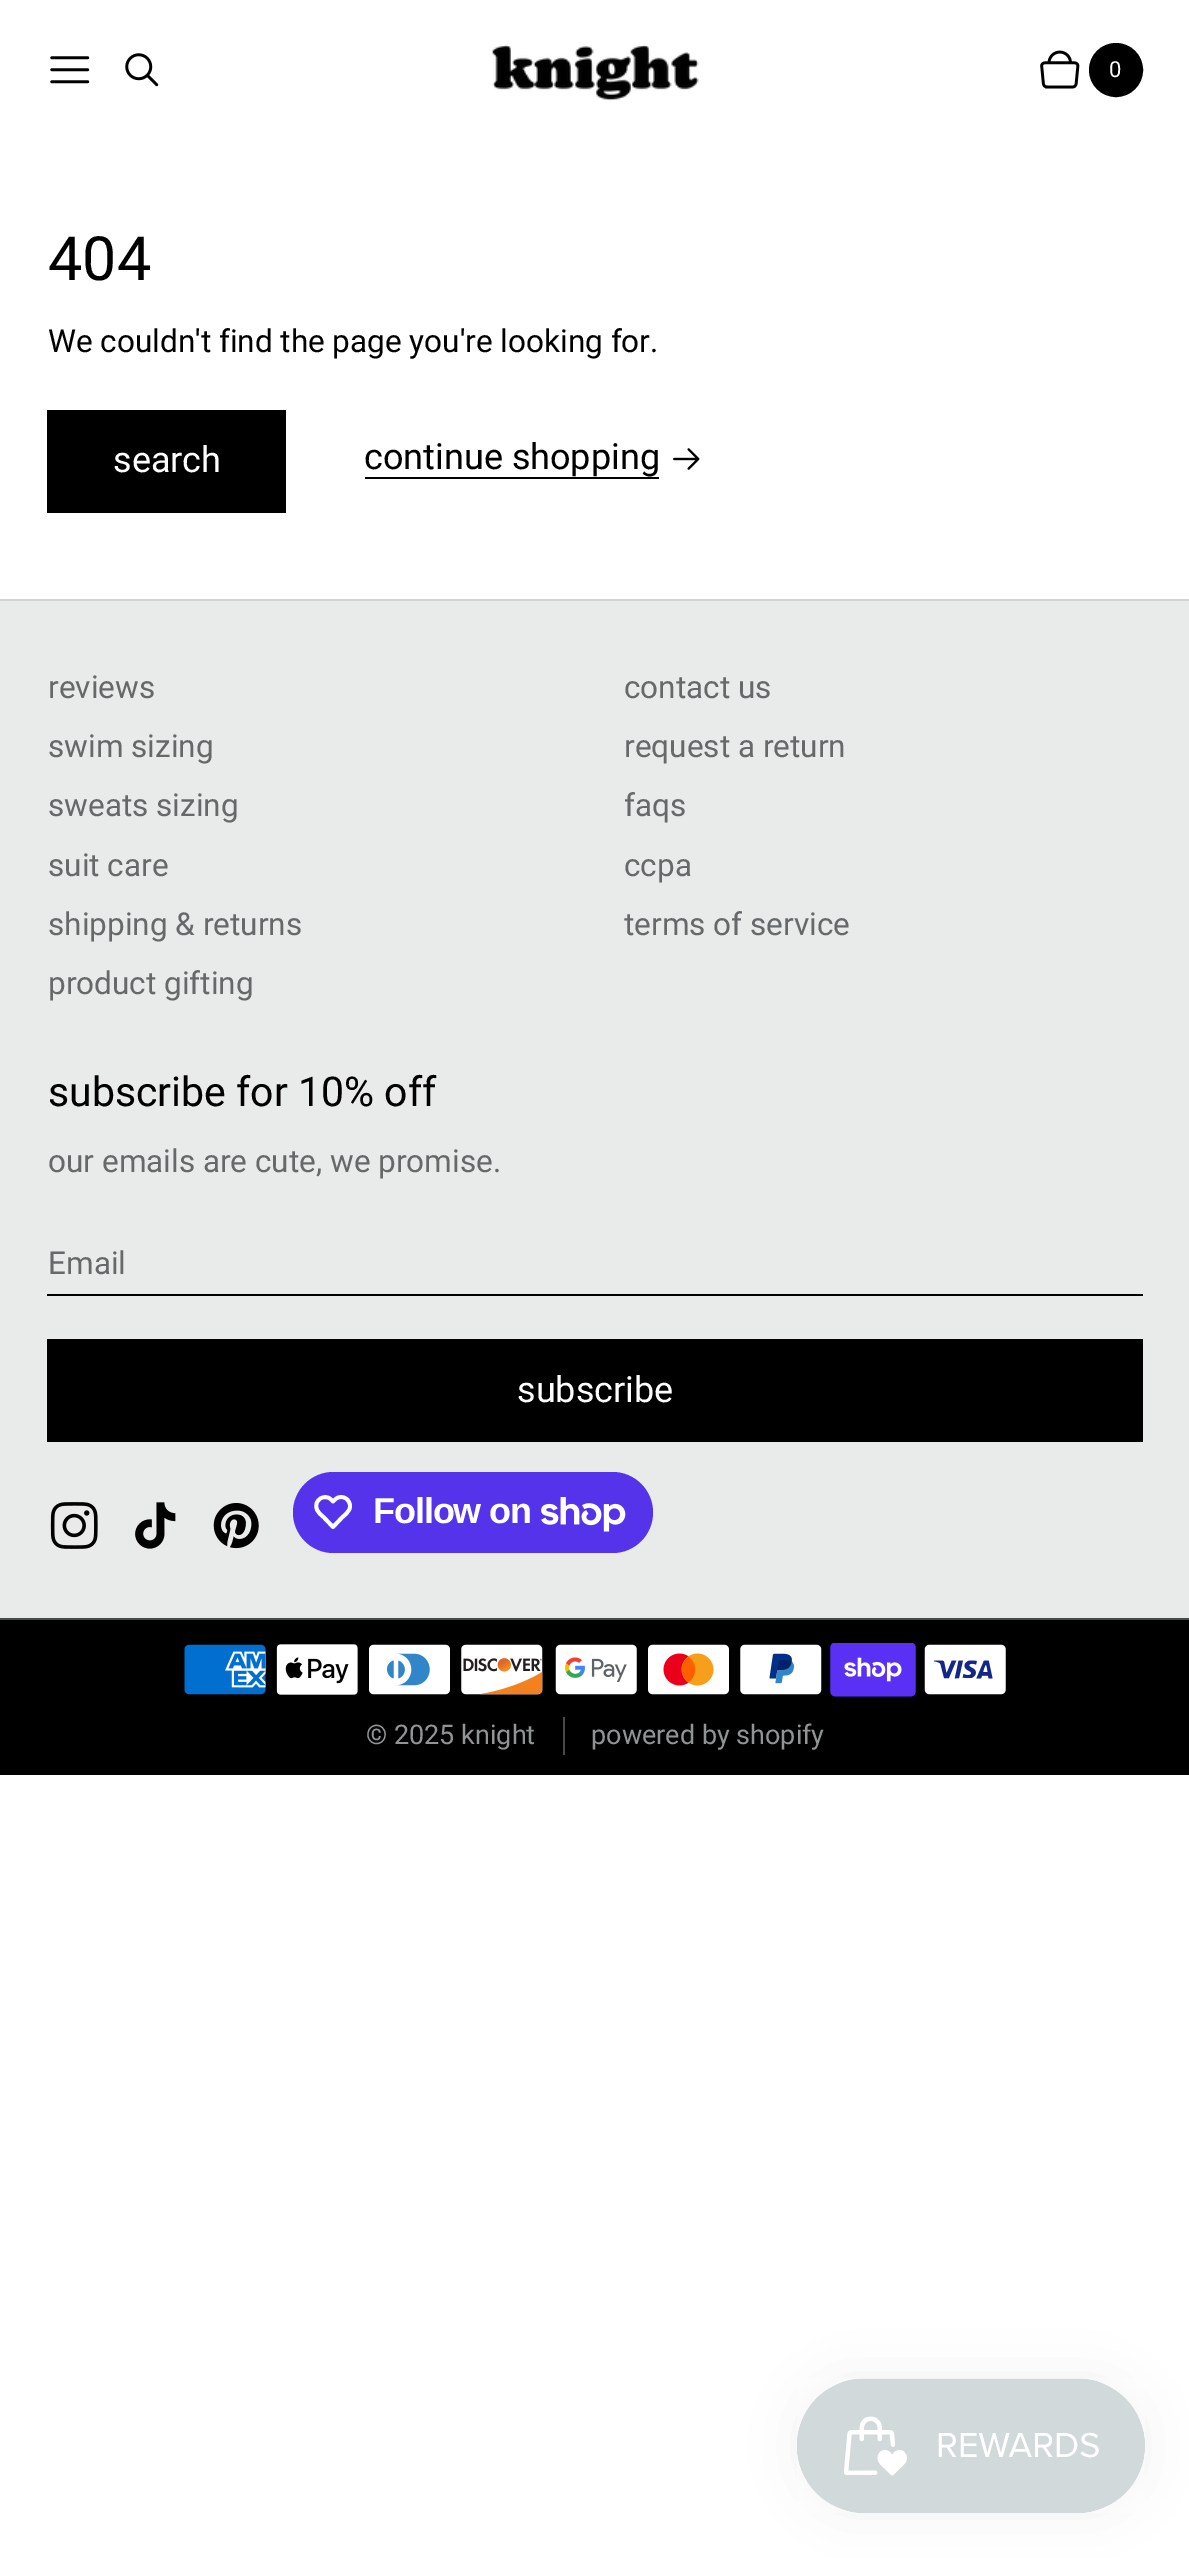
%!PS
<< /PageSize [1189 2558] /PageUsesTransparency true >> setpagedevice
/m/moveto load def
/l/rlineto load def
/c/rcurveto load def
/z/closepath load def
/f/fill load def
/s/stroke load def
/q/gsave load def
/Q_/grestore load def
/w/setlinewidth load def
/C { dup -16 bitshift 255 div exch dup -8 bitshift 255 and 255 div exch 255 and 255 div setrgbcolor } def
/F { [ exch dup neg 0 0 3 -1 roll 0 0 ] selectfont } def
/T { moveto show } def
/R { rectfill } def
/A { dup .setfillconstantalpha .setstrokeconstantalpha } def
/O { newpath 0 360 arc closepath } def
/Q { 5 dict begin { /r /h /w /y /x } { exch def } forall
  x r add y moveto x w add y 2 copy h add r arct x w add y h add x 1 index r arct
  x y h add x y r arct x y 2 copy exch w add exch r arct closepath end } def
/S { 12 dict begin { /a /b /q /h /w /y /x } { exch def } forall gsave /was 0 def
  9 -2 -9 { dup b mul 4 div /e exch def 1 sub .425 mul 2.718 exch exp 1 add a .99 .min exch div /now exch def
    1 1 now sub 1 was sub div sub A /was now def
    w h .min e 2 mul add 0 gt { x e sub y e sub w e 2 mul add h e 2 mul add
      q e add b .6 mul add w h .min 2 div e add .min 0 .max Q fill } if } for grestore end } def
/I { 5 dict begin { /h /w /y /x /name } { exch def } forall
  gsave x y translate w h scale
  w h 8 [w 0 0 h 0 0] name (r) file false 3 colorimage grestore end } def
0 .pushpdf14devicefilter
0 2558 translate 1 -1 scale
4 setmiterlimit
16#FFFFFF C
0 0 1189 2558 R
(1.rgb) 50 56 40 28 I
(2.rgb) 125 53 34 34 I
(3.rgb) 492 44 207 57 I
(4.rgb) 1040 50 40 39 I
16#000000 C
1116 70 26 O q f Q_
2 w
s
/Roboto-Regular 22 F
16#FFFFFF C
(0) 1109 77 T
/Roboto-Regular 61 F
16#000000 C
(404) 48 280 T
/Roboto-Regular 31.5 F
(We couldn't find the page you're looking for.) 48 352 T
47 410 239 103 R
/Roboto-Regular 36 F
16#FFFFFF C
(search) 113 472 T
16#000000 C
(continue shopping) 364 469 T
365 477 294 2 R
(5.rgb) 673 448 27 22 I
16#E9EAEA C
0 601 1189 1017 R
16#D2D3D3 C
0 599 1189 2 R
/Roboto-Regular 31.5 F
16#656969 C
(reviews) 48 698 T
(swim sizing) 48 757 T
(sweats sizing) 48 816 T
(suit care) 48 876 T
(shipping & returns) 48 935 T
(product gifting) 48 994 T
(contact us) 624 698 T
(request a return) 624 757 T
(faqs) 624 816 T
(ccpa) 624 876 T
(terms of service) 624 935 T
/Roboto-Regular 41 F
16#000000 C
(subscribe for 10% off) 48 1106 T
/Roboto-Regular 31.5 F
16#656969 C
(our emails are cute, we promise.) 48 1172 T
(Email) 48 1274 T
16#000000 C
47 1294 1096 2 R
47 1339 1096 103 R
/Roboto-Regular 36 F
16#FFFFFF C
(subscribe) 517 1402 T
(6.rgb) 50 1502 48 47 I
(7.rgb) 135 1502 41 47 I
(8.rgb) 213 1503 46 46 I
16#5433EB C
293 1472 360 81 40.5 Q f
16#FFFFFF C
3.8 w
1 setlinejoin
331 1499.5 m 2 2 l 1.5 -1.5 3 -3.5 5.5 -4 c 7 -2.5 13.5 5 11 11.5 c -1.5 3.5 -4.5 6 -7 8 c -9.5 10 l -9.5 -10 l -2.5 -2 -5.5 -4.5 -6.5 -7.5 c -4 -9 7.5 -16.5 14 -10 c z s
/LiberationSans-Bold 36 F
373 1523 m -1.1 0 (Follow on) ashow
(9.rgb) 541 1497 85 35 I
16#000000 C
0 1620 1189 155 R
16#484A4A C
0 1618 1189 2 R
(10.rgb) 184 1644 82 51 I
(11.rgb) 276 1644 82 51 I
(12.rgb) 369 1644 81 51 I
(13.rgb) 461 1644 82 51 I
(14.rgb) 555 1644 82 51 I
(15.rgb) 648 1644 81 51 I
(16.rgb) 740 1644 82 51 I
(17.rgb) 830 1643 86 54 I
(18.rgb) 924 1644 82 51 I
/Roboto-Regular 27 F
16#909494 C
(© 2025 knight) 366 1744 T
16#484A4A C
563 1717 2 38 R
16#909494 C
(powered by shopify) 591 1744 T
16#000000 C
797 2378 348 135 67.5 28 .05 S
(19.rgb) 797 2378 348 135 I
.poppdf14devicefilter showpage
